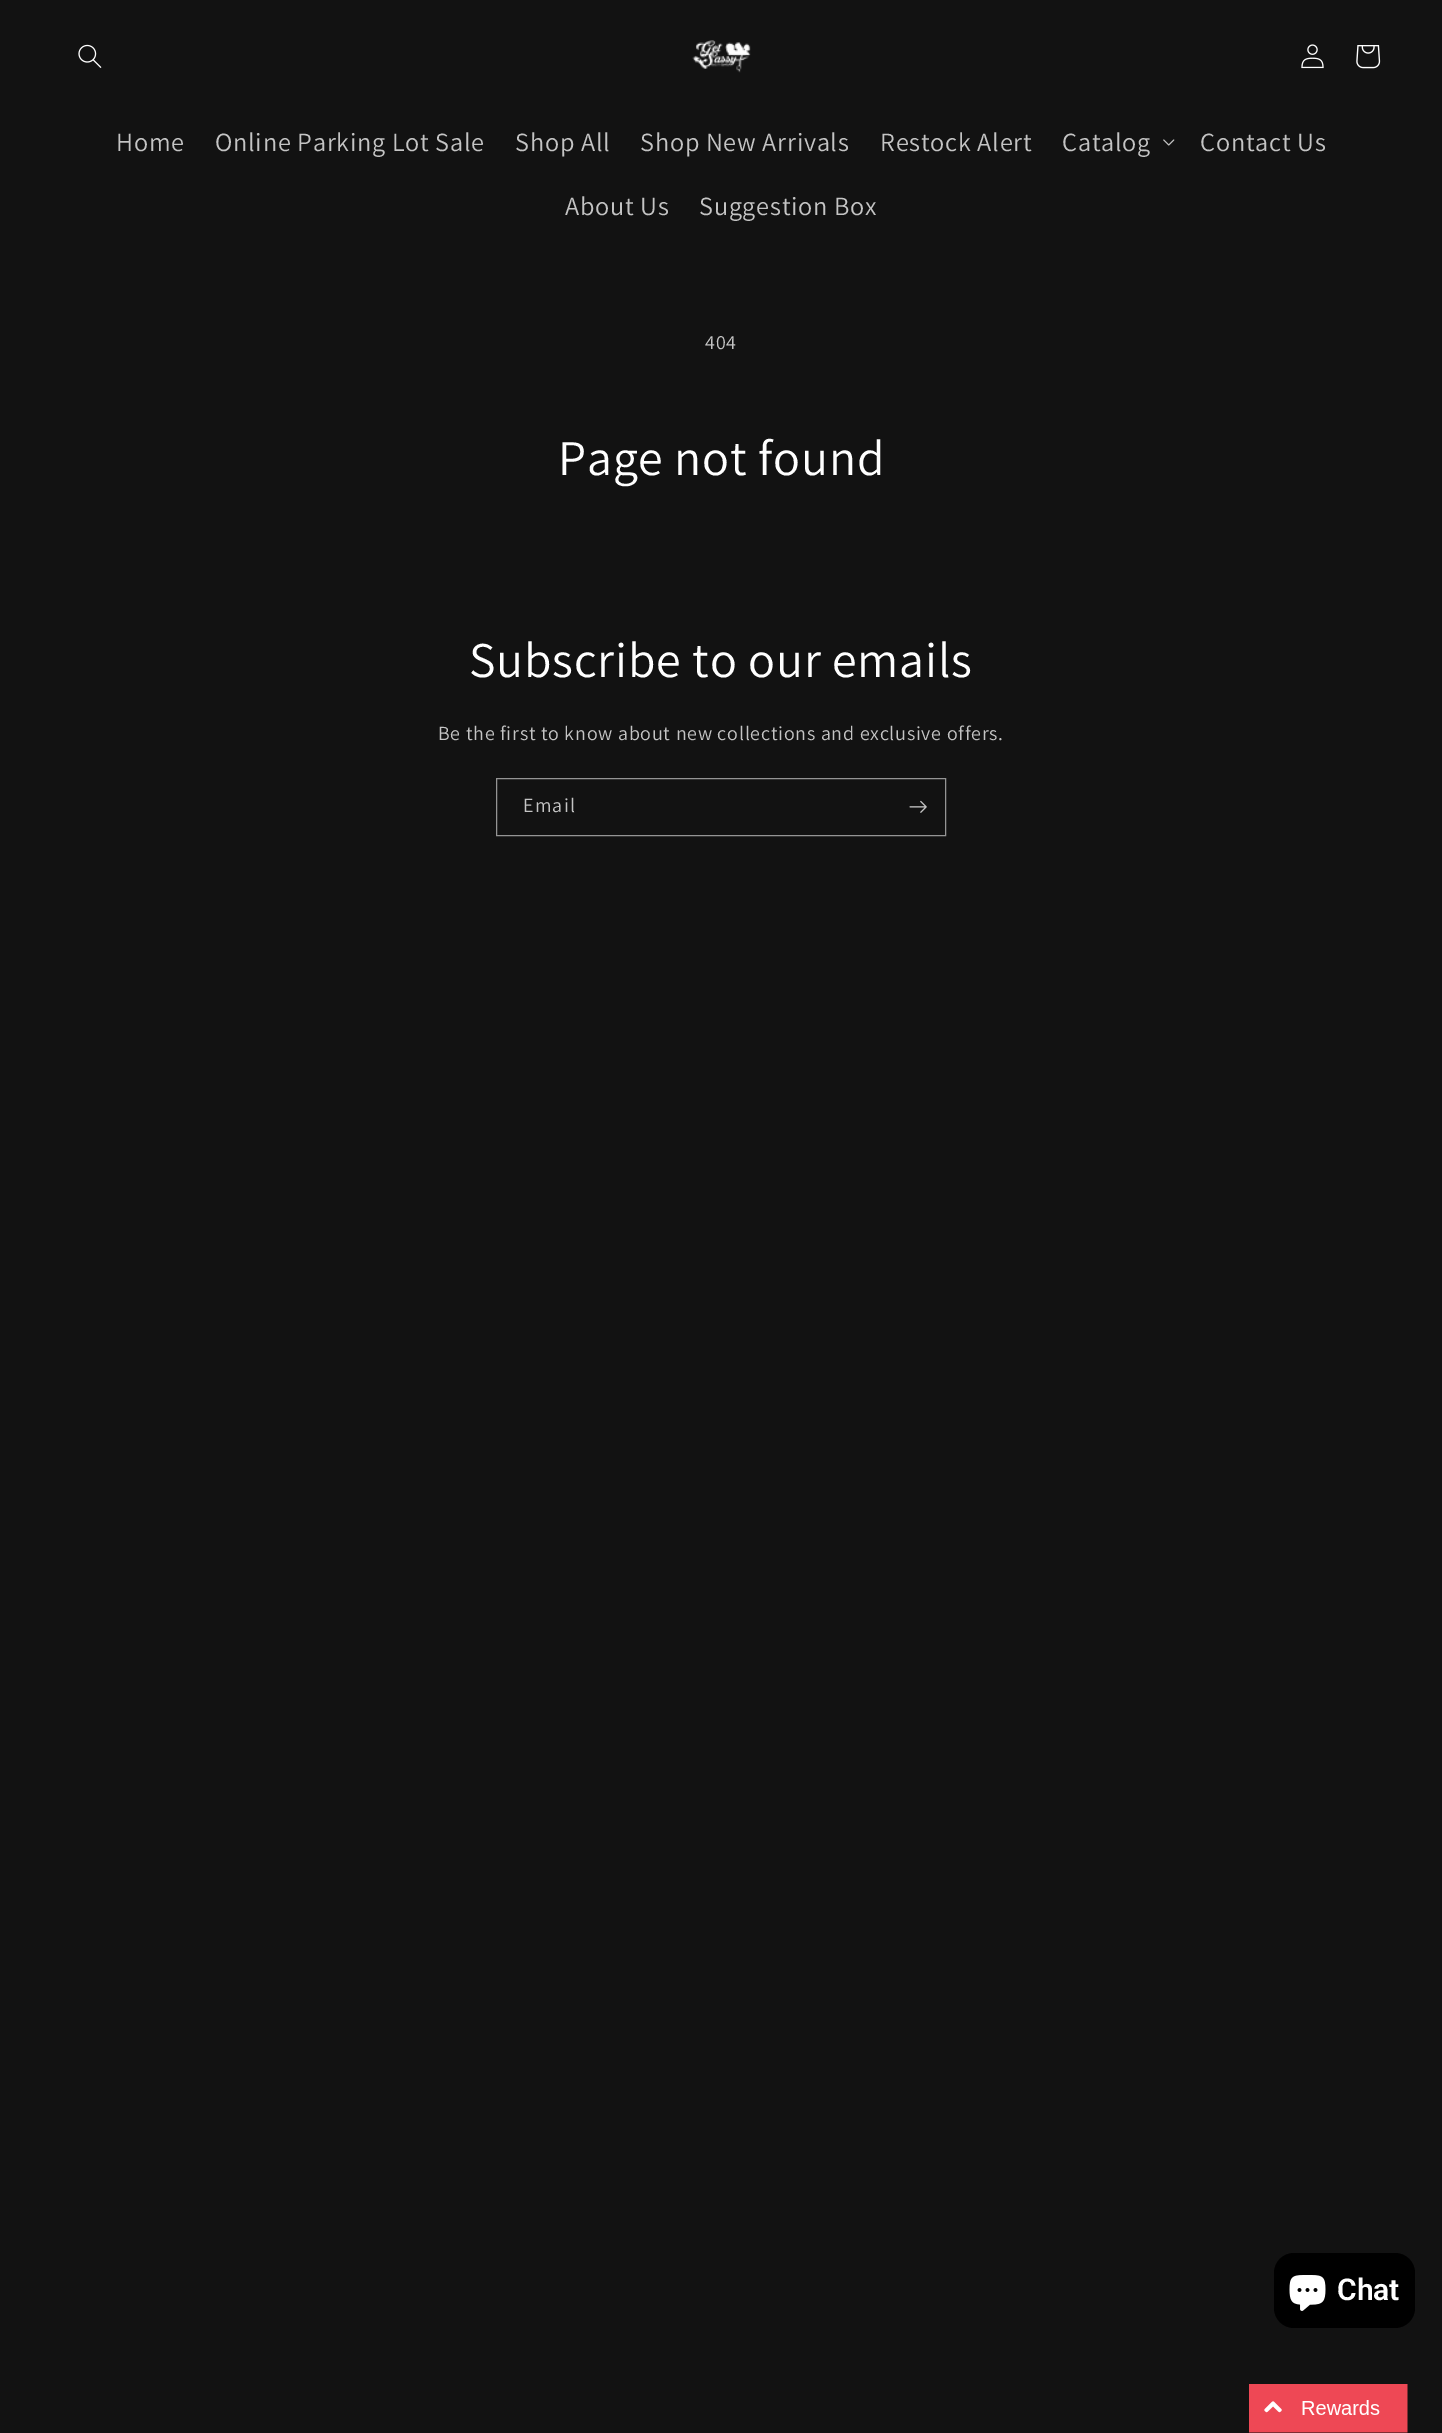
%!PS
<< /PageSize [1442 2433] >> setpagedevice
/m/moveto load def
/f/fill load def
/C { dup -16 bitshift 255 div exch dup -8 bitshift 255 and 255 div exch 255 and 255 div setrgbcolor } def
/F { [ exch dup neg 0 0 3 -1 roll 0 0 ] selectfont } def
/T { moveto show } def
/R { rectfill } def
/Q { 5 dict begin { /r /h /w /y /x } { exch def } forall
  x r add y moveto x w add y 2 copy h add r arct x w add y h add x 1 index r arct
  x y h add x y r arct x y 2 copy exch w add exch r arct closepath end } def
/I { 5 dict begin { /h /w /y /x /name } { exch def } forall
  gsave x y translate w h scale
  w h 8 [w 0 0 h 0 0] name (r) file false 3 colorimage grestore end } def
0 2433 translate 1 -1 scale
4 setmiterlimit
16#121212 C
0 0 1442 2433 R
(1.rgb) 78 44 24 24 I
(2.rgb) 692 40 59 33 I
(3.rgb) 1301 44 23 25 I
(4.rgb) 1356 45 25 24 I
/Assistant-Regular 26.25 F
16#C4C4C4 C
116 151 m .75 0 (Home) ashow
215 151 m .75 0 (Online Parking Lot Sale) ashow
515 151 m .75 0 (Shop All) ashow
640 151 m .75 0 (Shop New Arrivals) ashow
880 151 m .75 0 (Restock Alert) ashow
1062 151 m .75 0 (Catalog) ashow
(5.rgb) 1163 139 12 7 I
1200 151 m .75 0 (Contact Us) ashow
565 215 m .75 0 (About Us) ashow
699 215 m .75 0 (Suggestion Box) ashow
/Assistant-Regular 20 F
705 349 m .75 0 (404) ashow
/Assistant-Regular 50 F
16#FFFFFF C
558 475 m .75 0 (Page not found) ashow
469 677 m .75 0 (Subscribe to our emails) ashow
/Assistant-Regular 20 F
16#C4C4C4 C
438 740 m .75 0 (Be the first to know about new collections and exclusive offers.) ashow
16#949494 C
496.5 778.5 449 57 rectstroke
16#C4C4C4 C
523 812 m 1.25 0 (Email) ashow
(6.rgb) 909 800 18 13 I
16#000000 C
1274 2253 141 75 20 Q f
(7.rgb) 1289 2275 37 36 I
/Roboto-SemiBold 30 F
16#FFFFFF C
(Chat) 1337 2300 T
(8.rgb) 1249 2384 159 49 I
showpage
